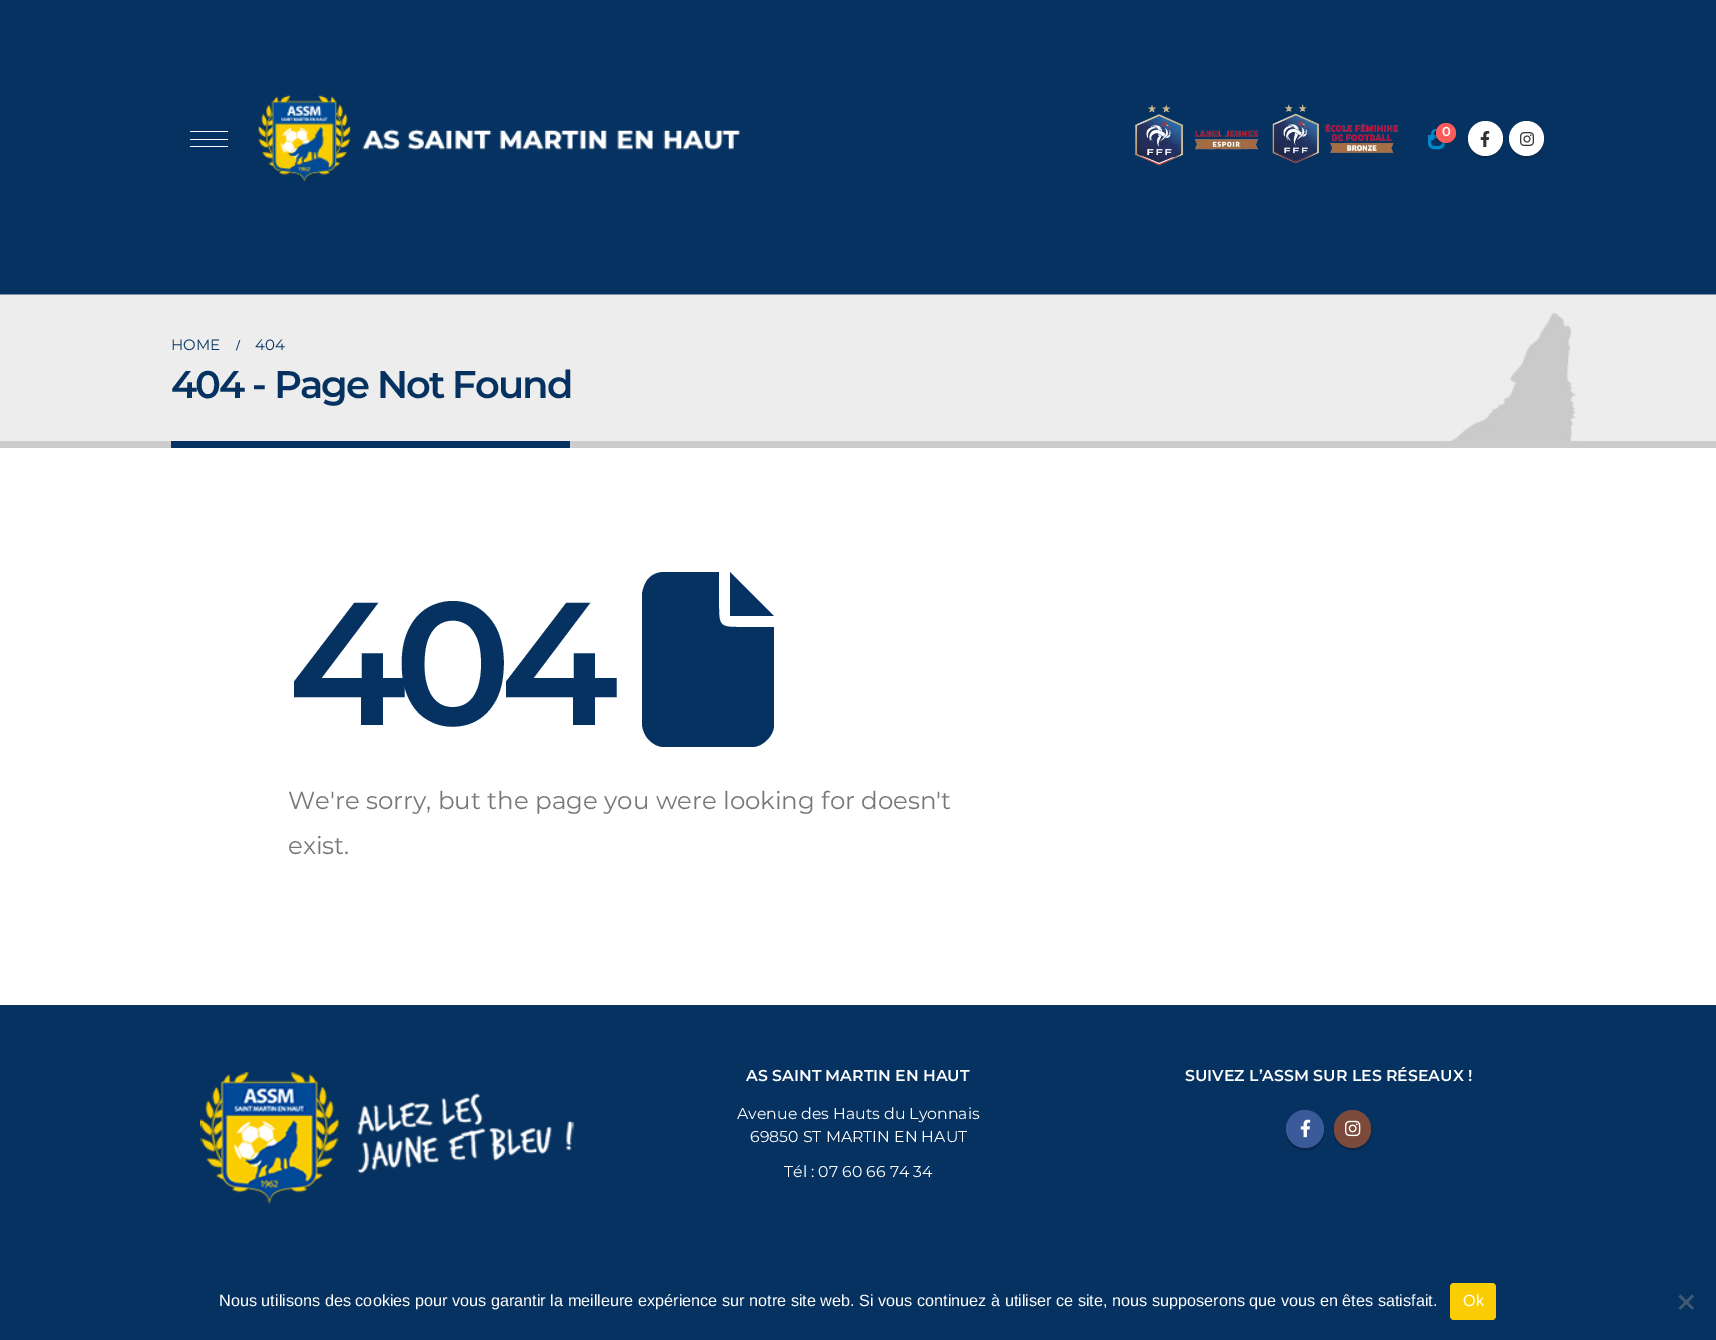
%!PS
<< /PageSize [1716 1340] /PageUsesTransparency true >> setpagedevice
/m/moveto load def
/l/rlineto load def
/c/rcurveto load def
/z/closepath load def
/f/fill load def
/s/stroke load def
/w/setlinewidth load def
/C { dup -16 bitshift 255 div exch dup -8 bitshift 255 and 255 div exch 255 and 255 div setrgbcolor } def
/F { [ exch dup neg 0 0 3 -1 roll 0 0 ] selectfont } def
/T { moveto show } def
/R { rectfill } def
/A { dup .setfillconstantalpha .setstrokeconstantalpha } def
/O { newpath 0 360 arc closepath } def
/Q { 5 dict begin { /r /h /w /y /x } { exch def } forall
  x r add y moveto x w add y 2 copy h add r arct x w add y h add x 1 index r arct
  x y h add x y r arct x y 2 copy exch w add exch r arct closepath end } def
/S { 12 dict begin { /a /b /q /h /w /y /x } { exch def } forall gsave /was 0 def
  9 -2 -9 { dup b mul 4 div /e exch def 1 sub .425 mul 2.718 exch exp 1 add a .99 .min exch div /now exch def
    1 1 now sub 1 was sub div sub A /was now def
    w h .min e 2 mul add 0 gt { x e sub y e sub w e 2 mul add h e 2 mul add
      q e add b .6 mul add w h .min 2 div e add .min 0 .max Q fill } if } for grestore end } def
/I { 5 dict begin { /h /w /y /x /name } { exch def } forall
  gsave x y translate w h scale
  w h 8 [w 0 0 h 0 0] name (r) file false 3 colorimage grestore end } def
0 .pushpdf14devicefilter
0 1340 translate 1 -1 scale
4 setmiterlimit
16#FFFFFF C
0 0 1716 1340 R
16#063261 C
0 0 1716 295 R
16#FFFFFF C
190 131 38 1 R
190 139 38 1 R
190 146 38 1 R
(1.rgb) 258 95 483 86 I
(2.rgb) 1135 104 263 62 I
16#0088CC C
3 w
1429.5 136.5 m 14 0 l 0 6.5 l 0 2.5 -2 4.5 -4.5 4.5 c -5 0 l -2.5 0 -4.5 -2 -4.5 -4.5 c z s
1436 129 m 6.5 0 5 7 5 11 c -10 0 l 0 -4 -1 -11 5 -11 c z 1436 131 m 4 0 3 6.5 3 9 c -5 0 l 0 -2.5 -1.5 -9 2 -9 c z eofill
16#000000 C
1435 124 20 20 10 1 .3 S
16#FF5B5B C
1446 133 10 O f
/Montserrat-SemiBold 13 F
16#FFFFFF C
(0) 1442 136 T
16#000000 C
1468 123 35 35 17.5 .5 .2 S
16#FFFFFF C
1485.5 138.5 17.5 O f
(3.rgb) 1480 131 10 16 I
16#000000 C
1509 123 35 35 17.5 .5 .2 S
16#FFFFFF C
1526.5 138.5 17.5 O f
(4.rgb) 1520 132 14 14 I
(5.rgb) 0 294 1716 147 I
16#CCCCCC C
0 441 1716 7 R
/Montserrat-Regular 15 F
16#063261 C
(HOME) 171 350 T
/LiberationSerif-Bold 15 F
(/) 236 350 T
/Montserrat-Regular 15 F
(404) 255 350 T
/Montserrat-SemiBold 38.5 F
171 398 m -1.9 0 (404 - Page Not Found) ashow
171 441 399 7 R
/Montserrat-SemiBold 175 F
288 725 m -12.5 0 (404) ashow
642 594 m 1 -6 3 -12 7 -16 c 4 -4 9 -6 15 -6 c 55 0 l 0 36 l 0 17 2 19 18 19 c 37 0 l 0 98 l 0 6 -3 11 -7 15 c -4 4 -9 7 -15 7 c -88 0 l -6 0 -11 -3 -15 -7 c -4 -4 -6 -9 -7 -15 c z 774 616 m -44 0 l 0 -44 l z f
/Montserrat-Regular 24.5 F
16#777777 C
(We're sorry, but the page you were looking for doesn't) 288 809 T
(exist.) 288 854 T
16#063261 C
0 1005 1716 335 R
(6.rgb) 200 1071 374 133 I
/Montserrat-SemiBold 15.75 F
16#FFFFFF C
(AS SAINT MARTIN EN HAUT) 746 1081 T
/Montserrat-Regular 15.75 F
(Avenue des Hauts du Lyonnais) 737 1119 T
(69850 ST MARTIN EN HAUT) 750 1142 T
(Tél : 07 60 66 74 34) 784 1177 T
/Montserrat-SemiBold 15.75 F
(SUIVEZ L’ASSM SUR LES RÉSEAUX !) 1185 1081 T
16#000000 C
1286 1113 38 37 18.5 1 .3 S
16#3B5A9A C
1305 1129 19 O f
(7.rgb) 1300 1119 11 19 I
16#000000 C
1334 1113 37 37 18.5 1 .3 S
16#7C4A3A C
1334 1110 37 38 18.5 Q f
(8.rgb) 1345 1120 16 17 I
/LiberationSans-Regular 16.25 F
16#FFFFFF C
(Nous utilisons des cookies pour vous garantir la meilleure expérience sur notre site web. Si vous continuez à utiliser ce site, nous supposerons que vous en êtes satisfait.) 219 1306 T
16#FACD02 C
1450 1283 46 37 4 Q f
16#FFFFFF C
(Ok) 1463 1306 T
16#435971 C
1692 1294.5 m 2 2 l -13.5 13 l -2 -1.5 l z f
1678.5 1296.5 m 2 -2 l 13.5 13.5 l -2 1.5 l z f
.poppdf14devicefilter showpage
